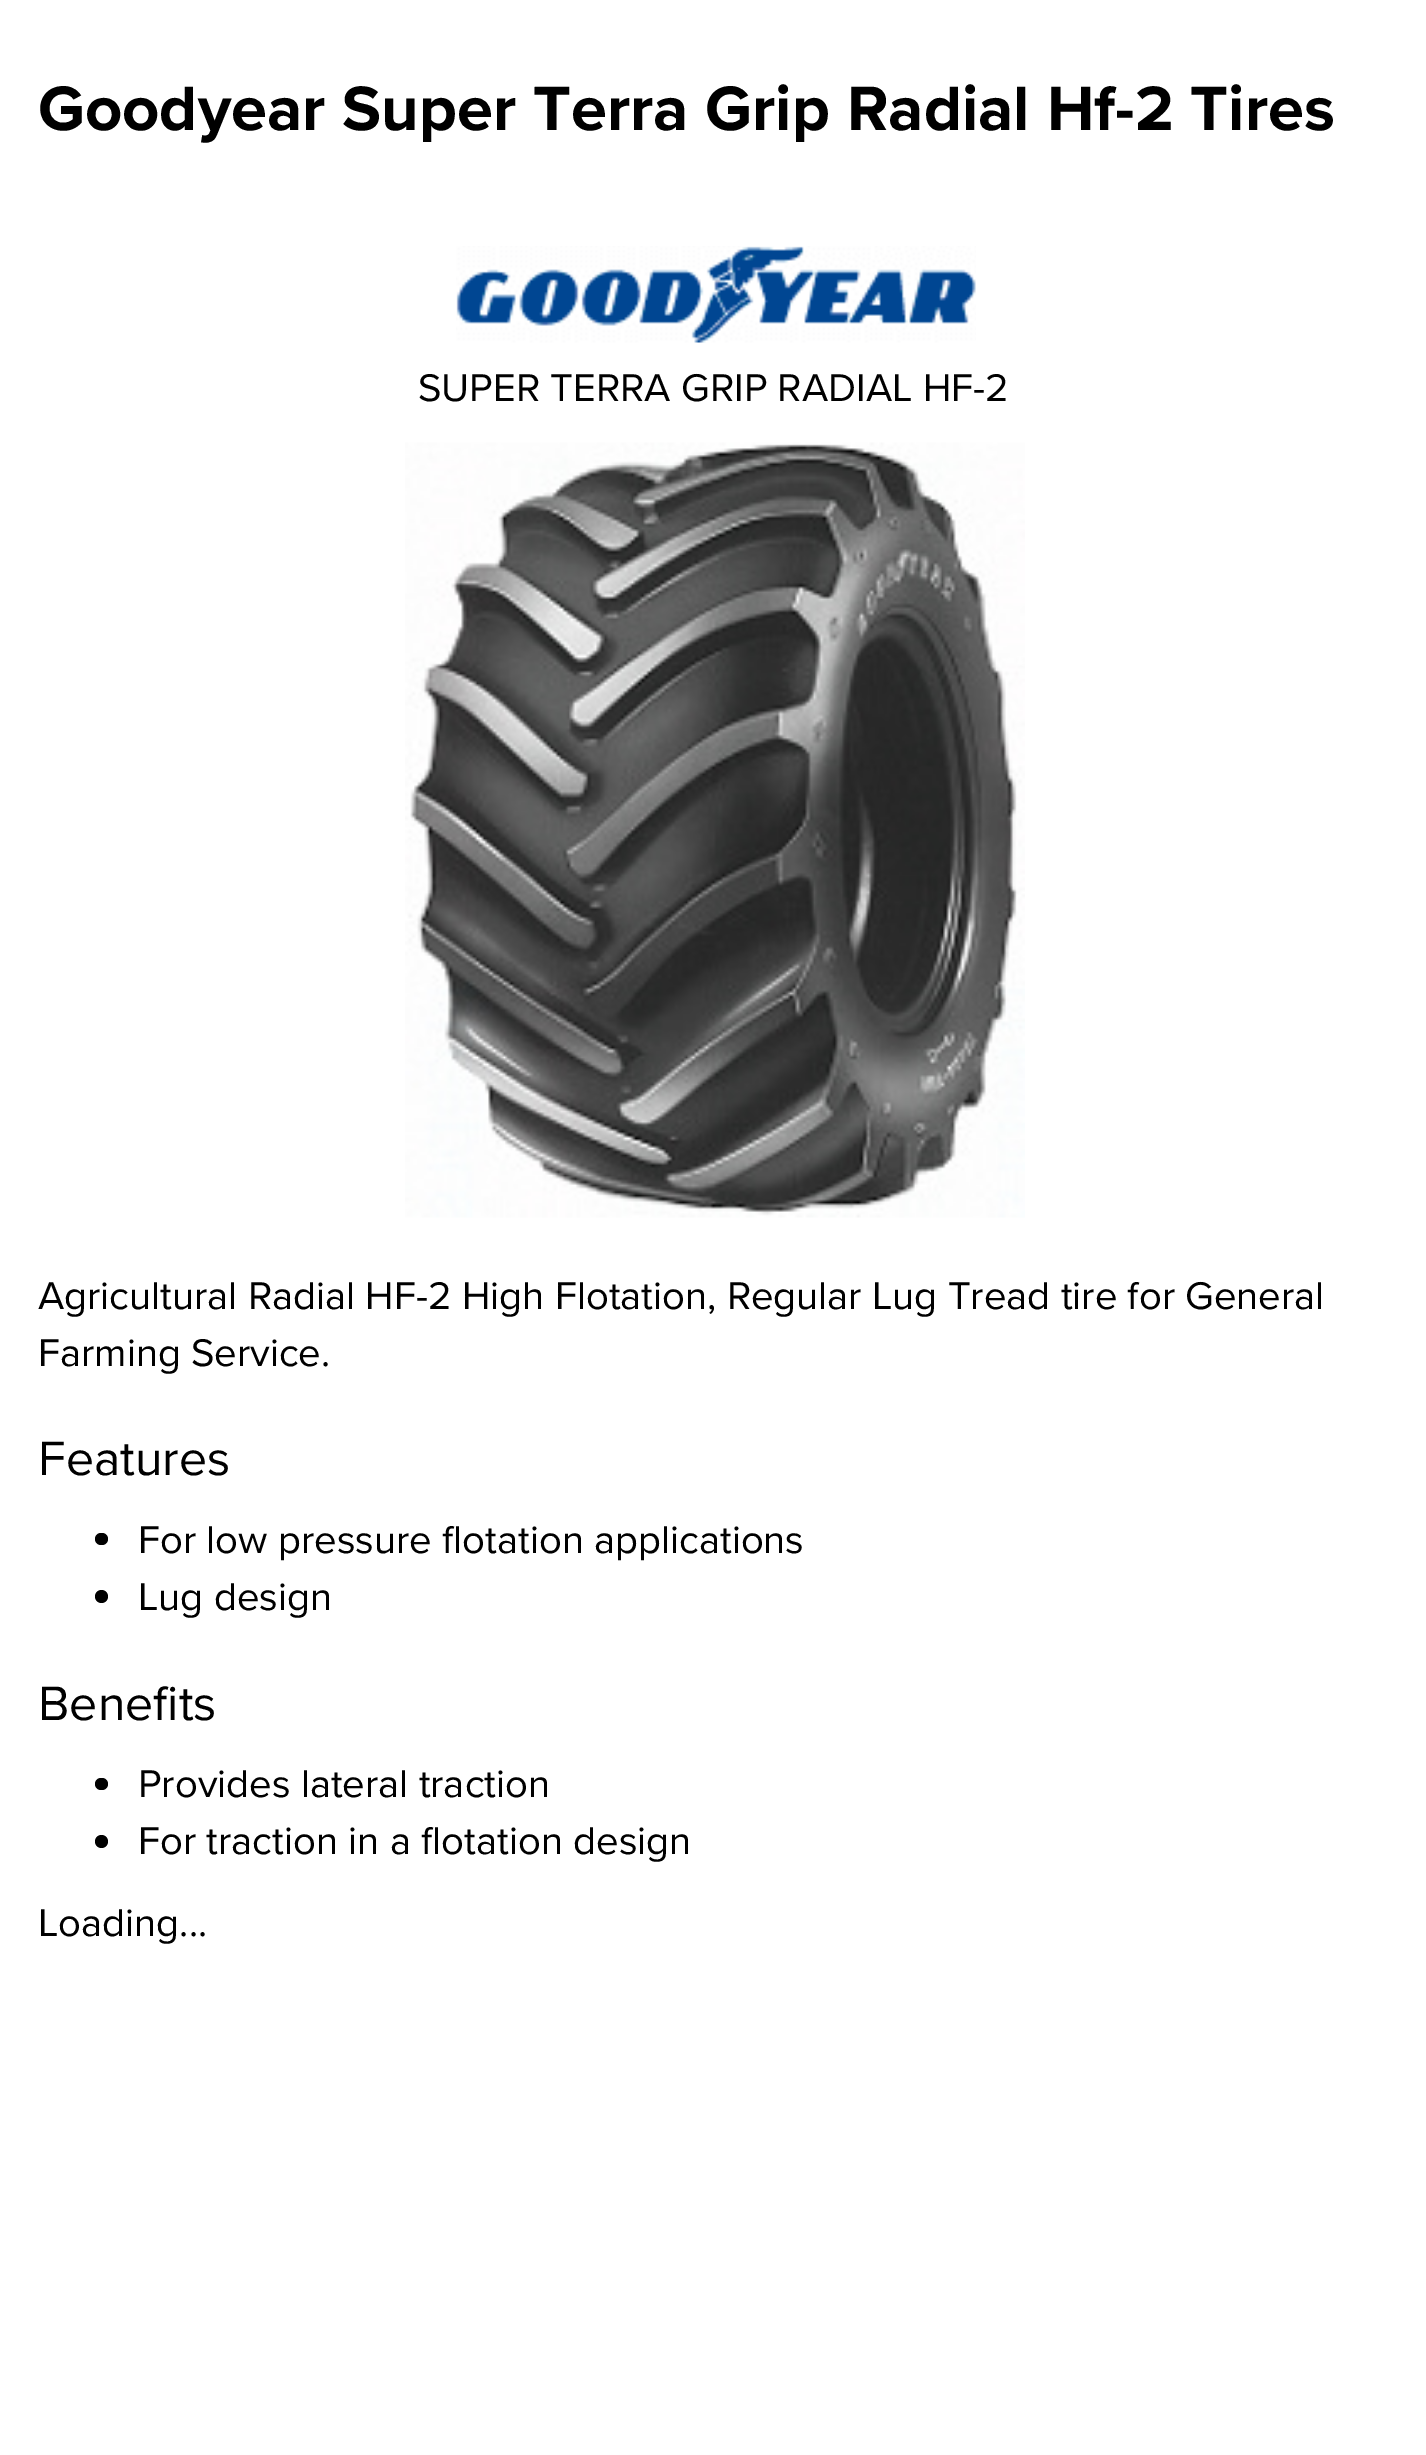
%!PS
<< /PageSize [1426 2455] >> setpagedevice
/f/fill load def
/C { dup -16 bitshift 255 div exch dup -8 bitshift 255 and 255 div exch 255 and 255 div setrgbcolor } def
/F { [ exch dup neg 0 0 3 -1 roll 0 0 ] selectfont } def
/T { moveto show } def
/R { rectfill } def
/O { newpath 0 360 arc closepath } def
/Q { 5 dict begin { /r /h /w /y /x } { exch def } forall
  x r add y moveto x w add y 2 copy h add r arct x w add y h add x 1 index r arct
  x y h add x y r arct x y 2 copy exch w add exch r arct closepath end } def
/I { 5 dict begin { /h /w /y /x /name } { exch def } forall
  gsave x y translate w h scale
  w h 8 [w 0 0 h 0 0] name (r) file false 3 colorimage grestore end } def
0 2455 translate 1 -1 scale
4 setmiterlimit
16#FFFFFF C
0 0 1426 2455 R
/ProximaNova-Bold 65 F
16#000000 C
(Goodyear Super Terra Grip Radial Hf-2 Tires) 38 130 T
(1.rgb) 456 246 520 97 I
/ProximaNova-Regular 40 F
(SUPER TERRA GRIP RADIAL HF-2) 418 401 T
(2.rgb) 405 442 620 776 I
(Agricultural Radial HF-2 High Flotation, Regular Lug Tread tire for General) 38 1309 T
(Farming Service.) 38 1366 T
/ProximaNova-Regular 50 F
(Features) 38 1475 T
95 1533 13 12 6 Q f
/ProximaNova-Regular 40 F
(For low pressure flotation applications) 138 1553 T
101.5 1596.5 6.5 O f
(Lug design) 138 1610 T
/ProximaNova-Regular 50 F
(Benefits) 38 1720 T
95 1778 13 12 6 Q f
/ProximaNova-Regular 40 F
(Provides lateral traction) 138 1797 T
101.5 1841.5 6.5 O f
(For traction in a flotation design) 138 1854 T
(Loading...) 38 1936 T
showpage
